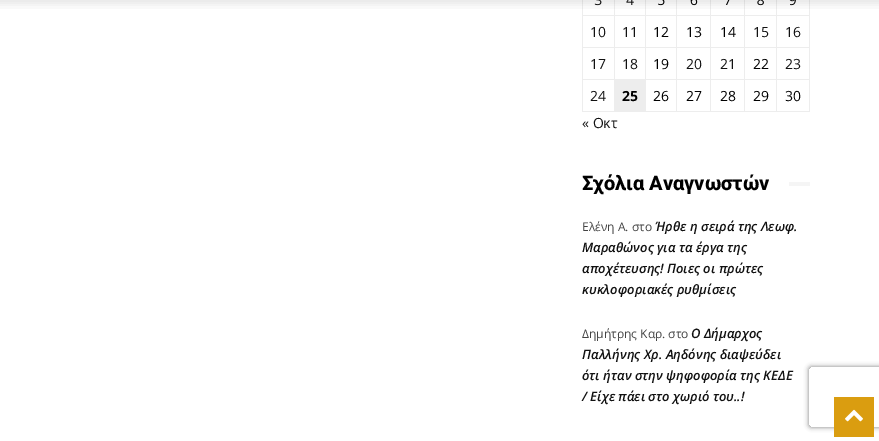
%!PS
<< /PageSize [879 441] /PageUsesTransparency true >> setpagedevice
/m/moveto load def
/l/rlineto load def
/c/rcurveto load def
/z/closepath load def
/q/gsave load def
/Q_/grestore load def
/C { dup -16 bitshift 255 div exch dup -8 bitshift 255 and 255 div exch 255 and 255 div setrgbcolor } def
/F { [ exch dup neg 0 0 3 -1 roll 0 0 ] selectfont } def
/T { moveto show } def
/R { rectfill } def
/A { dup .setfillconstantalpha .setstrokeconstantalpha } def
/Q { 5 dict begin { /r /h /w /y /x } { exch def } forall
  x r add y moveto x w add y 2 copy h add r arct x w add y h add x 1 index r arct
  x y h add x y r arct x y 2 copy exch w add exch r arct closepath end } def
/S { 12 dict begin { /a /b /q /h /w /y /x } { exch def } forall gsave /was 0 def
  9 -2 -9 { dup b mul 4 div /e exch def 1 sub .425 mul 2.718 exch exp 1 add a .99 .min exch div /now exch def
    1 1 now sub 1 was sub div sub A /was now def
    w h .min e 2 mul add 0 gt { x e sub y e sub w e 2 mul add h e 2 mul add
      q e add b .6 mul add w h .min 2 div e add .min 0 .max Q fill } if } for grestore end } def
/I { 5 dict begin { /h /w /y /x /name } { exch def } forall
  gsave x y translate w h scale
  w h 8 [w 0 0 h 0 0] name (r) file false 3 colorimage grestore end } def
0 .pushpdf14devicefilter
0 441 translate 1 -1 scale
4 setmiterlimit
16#FFFFFF C
0 0 879 441 R
16#EDEDED C
776 15 34 1 R
776 47 34 1 R
776 79 34 1 R
809 79 1 33 R
776 111 34 1 R
776 79 1 33 R
744 79 33 1 R
776 47 1 33 R
744 47 33 1 R
776 15 1 33 R
744 15 33 1 R
744 111 33 1 R
744 79 1 33 R
710 79 35 1 R
744 47 1 33 R
710 47 35 1 R
744 15 1 33 R
710 15 35 1 R
710 111 35 1 R
710 79 1 33 R
676 79 35 1 R
710 47 1 33 R
676 47 35 1 R
710 15 1 33 R
676 15 35 1 R
676 111 35 1 R
676 79 1 33 R
614 79 63 1 R
676 47 1 33 R
645 47 32 1 R
676 15 1 33 R
645 15 32 1 R
645 47 1 33 R
614 47 32 1 R
645 15 1 33 R
614 15 32 1 R
614 111 63 1 R
614 79 1 33 R
582 79 33 1 R
614 47 1 33 R
582 47 33 1 R
614 15 1 33 R
582 15 33 1 R
614 0 1 16 R
645 0 1 16 R
676 0 1 16 R
710 0 1 16 R
744 0 1 16 R
776 0 1 16 R
582 111 33 1 R
582 79 1 33 R
582 47 1 33 R
582 0 1 48 R
809 47 1 33 R
809 0 1 48 R
(1.rgb) 0 0 879 9 I
/OpenSans-Regular 14 F
16#111111 C
(10) 590 37 T
(11) 622 37 T
16#000000 C
(12) 653 37 T
(13) 686 37 T
(14) 720 37 T
16#111111 C
(15) 753 37 T
(16) 785 37 T
(17) 590 69 T
(18) 622 69 T
16#000000 C
(19) 653 69 T
16#111111 C
(20) 686 69 T
(21) 720 69 T
16#000000 C
(22) 753 69 T
16#111111 C
(23) 785 69 T
(24) 590 101 T
16#EDEDED C
615 80 31 31 R
/OpenSans-Bold 14 F
16#000000 C
(25) 622 101 T
/OpenSans-Regular 14 F
(26) 653 101 T
(27) 686 101 T
(28) 720 101 T
(29) 753 101 T
(30) 785 101 T
16#111111 C
(« Οκτ) 582 128 T
/Roboto-ExtraBold 20 F
16#000000 C
(Σχόλια Αναγνωστών) 582 190 T
16#F5F5F5 C
789 182 21 4 R
/OpenSans-Regular 12 F
16#444444 C
(Ελένη Α. στο) 582 231 T
/OpenSans-SemiBoldItalic 13 F
16#111111 C
(Ήρθε η σειρά της Λεωφ.) 655 231 T
(Μαραθώνος για τα έργα της) 582 252 T
(αποχέτευσης! Ποιες οι πρώτες) 582 273 T
(κυκλοφοριακές ρυθμίσεις) 582 294 T
/OpenSans-Regular 12 F
16#444444 C
(Δημήτρης Καρ. στο) 582 338 T
/OpenSans-SemiBoldItalic 13 F
16#111111 C
(Ο Δήμαρχος) 691 338 T
(Παλλήνης Χρ. Αηδόνης διαψεύδει) 582 359 T
(ότι ήταν στην ψηφοφορία της ΚΕΔΕ) 582 380 T
(/ Είχε πάει στο χωριό του..!) 582 401 T
q
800 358 m 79 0 l 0 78 l -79 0 l z 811 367 m 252 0 l 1 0 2 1 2 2 c 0 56 l 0 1 -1 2 -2 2 c -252 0 l -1 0 -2 -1 -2 -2 c 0 -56 l 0 -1 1 -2 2 -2 c z eoclip newpath
16#808080 C
809 367 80 60 2 2.5 1 S
Q_
16#DA9D10 C
834 397 40 40 R
(2.rgb) 845 409 18 13 I
.poppdf14devicefilter showpage
